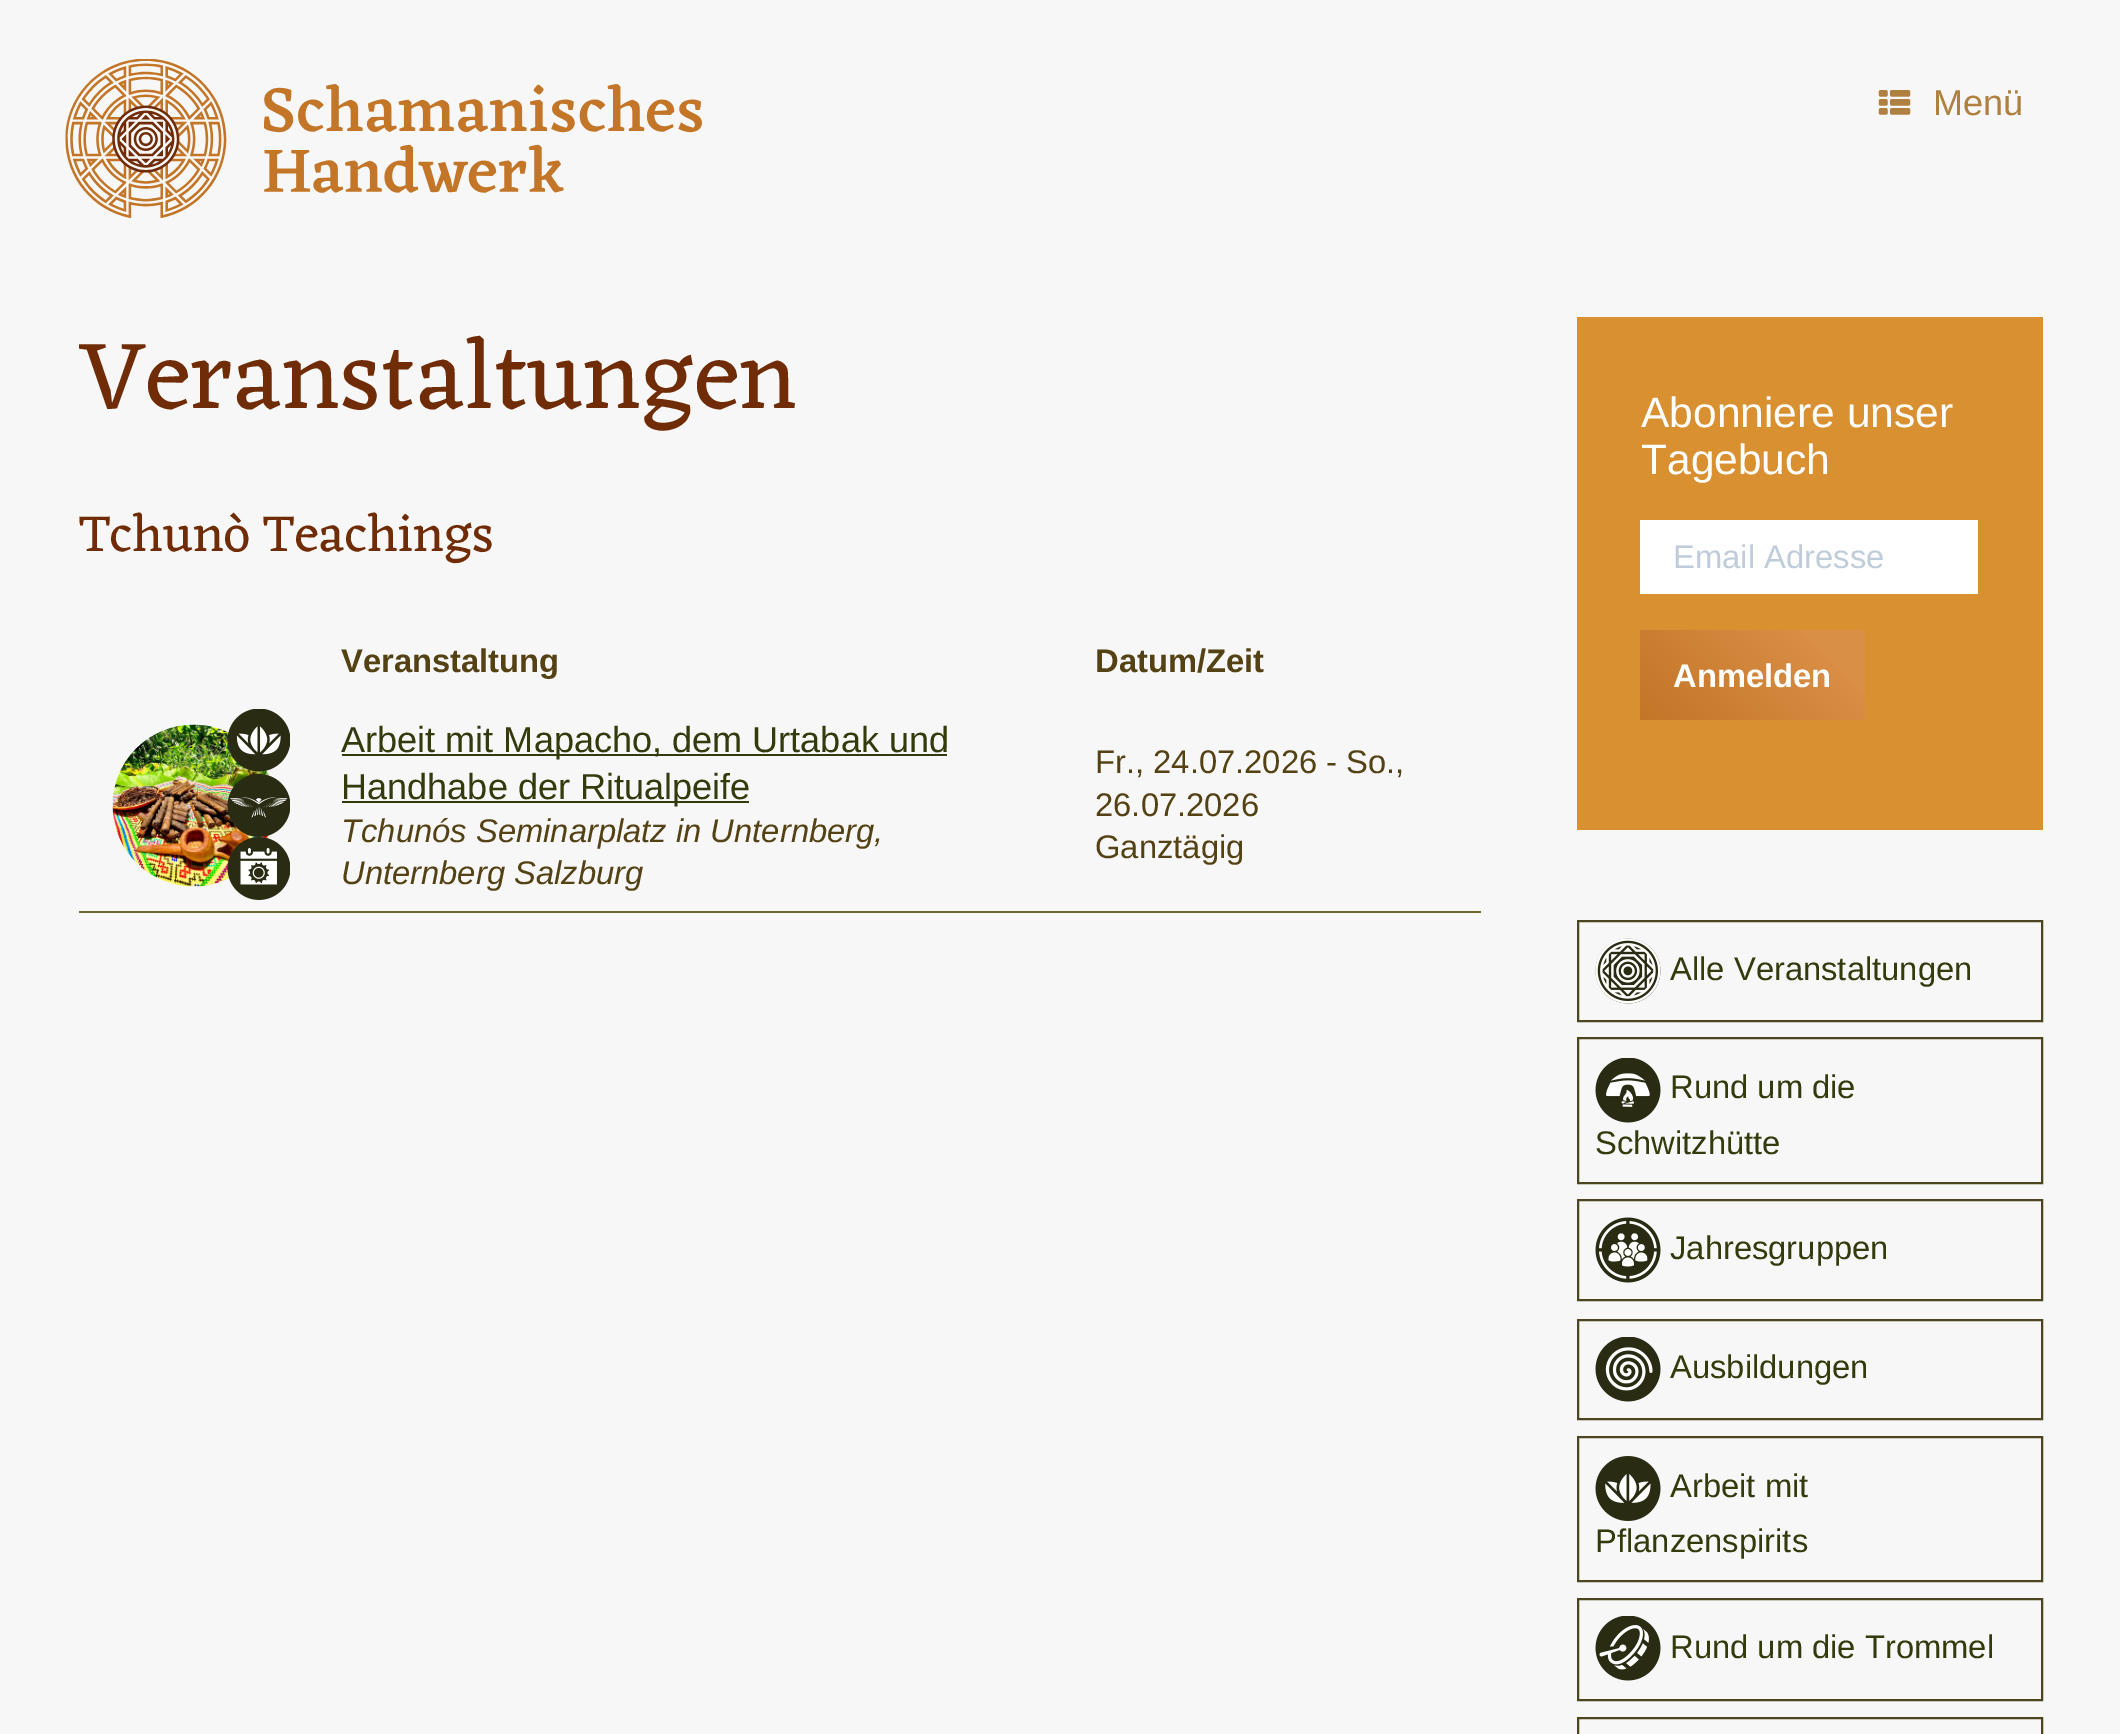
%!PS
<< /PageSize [2120 1734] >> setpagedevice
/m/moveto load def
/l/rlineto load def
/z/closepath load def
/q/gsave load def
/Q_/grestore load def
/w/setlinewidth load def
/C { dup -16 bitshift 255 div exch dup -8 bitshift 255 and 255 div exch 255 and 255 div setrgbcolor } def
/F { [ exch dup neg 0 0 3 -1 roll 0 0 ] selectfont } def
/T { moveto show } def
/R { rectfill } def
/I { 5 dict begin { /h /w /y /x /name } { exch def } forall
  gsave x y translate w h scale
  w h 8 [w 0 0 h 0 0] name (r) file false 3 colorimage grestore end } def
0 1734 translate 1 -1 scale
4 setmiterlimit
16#F7F7F7 C
0 0 2120 1734 R
(1.rgb) 65 59 637 159 I
(2.rgb) 1878 90 33 25 I
/LiberationSans-Regular 36.1 F
16#B08040 C
(Menü) 1933 115 T
/Eczar-Regular 98.25 F
16#702C07 C
(Veranstaltungen) 79 408 T
/Eczar-Regular 52.5 F
(Tchunò Teachings) 79 551 T
/LiberationSans-Bold 32.75 F
16#554214 C
(Veranstaltung) 341 672 T
(Datum/Zeit) 1095 672 T
16#70672F C
79 911 1402 2 R
(6.rgb) 112 724 157 163 I
(3.rgb) 227 709 63 63 I
(4.rgb) 227 774 63 63 I
(5.rgb) 227 837 63 63 I
16#343A0C C
342 754 605 2 R
/LiberationSans-Regular 36.1 F
(Arbeit mit Mapacho, dem Urtabak und) 341 752 T
342 801 407 2 R
(Handhabe der Ritualpeife) 341 799 T
/LiberationSans-Italic 32.75 F
16#554214 C
(Tchunós Seminarplatz in Unternberg,) 341 842 T
(Unternberg Salzburg) 341 884 T
/LiberationSans-Regular 32.75 F
(Fr., 24.07.2026 - So.,) 1095 773 T
(26.07.2026) 1095 816 T
(Ganztägig) 1095 858 T
16#D89031 C
1577 317 466 513 R
/LiberationSans-Regular 42.5 F
16#FFFFFF C
(Abonniere unser) 1641 427 T
(Tagebuch) 1641 474 T
1640 520 338 74 R
/LiberationSans-Regular 32.75 F
16#C0CCDA C
(Email Adresse) 1673 568 T
q 1640 630 m 225 0 l 0 90 l -225 0 l z clip newpath
<< /ShadingType 2 /ColorSpace /DeviceRGB /Coords [1674 754 1832 596] /Extend [true true] /Function << /FunctionType 3 /Domain [0 1] /Functions [<< /FunctionType 2 /Domain [0 1] /C0 [.765 .459 .157] /C1 [.851 .561 .271] /N 1 >> << /FunctionType 2 /Domain [0 1] /C0 [.851 .561 .271] /C1 [.851 .561 .271] /N 1 >>] /Bounds [.8] /Encode [0 1 0 1] >> >> shfill Q_
/LiberationSans-Bold 32.75 F
16#FFFFFF C
(Anmelden) 1673 687 T
16#4C4620 C
2 w
1578 921 464 100 rectstroke
(7.rgb) 1595 938 66 66 I
/LiberationSans-Regular 32.75 F
16#343A0C C
(Alle Veranstaltungen) 1670 980 T
16#4C4620 C
1578 1038 464 145 rectstroke
(8.rgb) 1595 1058 66 65 I
16#343A0C C
(Rund um die) 1670 1098 T
(Schwitzhütte) 1595 1154 T
16#4C4620 C
1578 1200 464 100 rectstroke
(9.rgb) 1595 1217 66 66 I
16#343A0C C
(Jahresgruppen) 1670 1259 T
16#4C4620 C
1578 1320 464 99 rectstroke
(10.rgb) 1595 1337 66 65 I
16#343A0C C
(Ausbildungen) 1670 1378 T
16#4C4620 C
1578 1437 464 144 rectstroke
(11.rgb) 1595 1456 66 65 I
16#343A0C C
(Arbeit mit) 1670 1497 T
(Pflanzenspirits) 1595 1552 T
16#4C4620 C
1578 1599 464 101 rectstroke
(12.rgb) 1595 1616 66 65 I
16#343A0C C
(Rund um die Trommel) 1670 1658 T
16#4C4620 C
1578 1718 464 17 rectstroke
showpage
